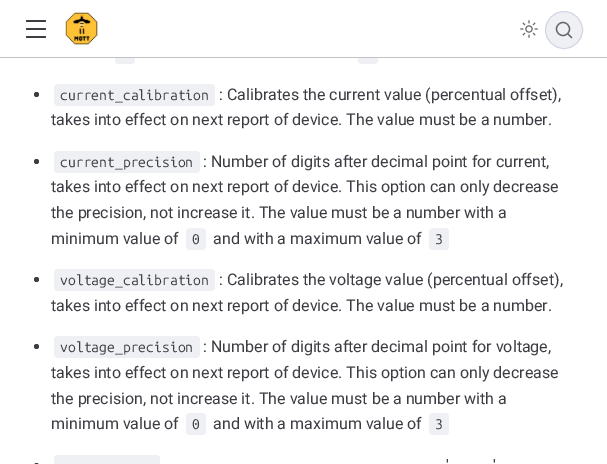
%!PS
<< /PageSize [607 464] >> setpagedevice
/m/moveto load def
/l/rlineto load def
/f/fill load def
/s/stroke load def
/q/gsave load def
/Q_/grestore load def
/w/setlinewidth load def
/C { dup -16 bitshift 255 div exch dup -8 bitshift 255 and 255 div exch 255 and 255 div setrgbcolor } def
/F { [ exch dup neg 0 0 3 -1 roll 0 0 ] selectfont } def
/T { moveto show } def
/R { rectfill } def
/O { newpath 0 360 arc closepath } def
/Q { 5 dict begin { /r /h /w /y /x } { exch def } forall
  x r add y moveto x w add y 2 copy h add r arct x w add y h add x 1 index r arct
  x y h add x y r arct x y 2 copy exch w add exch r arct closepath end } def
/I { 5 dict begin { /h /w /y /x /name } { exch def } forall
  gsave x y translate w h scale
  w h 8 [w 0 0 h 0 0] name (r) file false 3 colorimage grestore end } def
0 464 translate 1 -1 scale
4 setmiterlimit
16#FFFFFF C
0 0 607 464 R
16#EFF0F3 C
115 42 20 22 4 Q f
358 42 20 22 4 Q f
16#FFFFFF C
115 42 263 15 R
16#C2C2C4 C
0 57 607 1 R
16#3C3C43 C
26 20 20 2 1 Q f
26 28 20 2 1 Q f
26 36 20 2 1 Q f
(1.rgb) 65 12 33 33 I
(2.rgb) 520 20 18 18 I
16#EFF0F3 C
564 30 18.5 O q f Q_
16#D6D6E7 C
s
16#63646A C
1.2 w
563 29 6.5 O s
1.3 w
1 setlinecap
1 setlinejoin
571.5 37.5 m -3.5 -3.5 l s
16#3C3C43 C
36.5 94.5 2.5 O f
16#EFF0F3 C
54 84 161 22 4 Q f
/UbuntuMono-Regular 14 F
16#3C3C43 C
(current_calibration) 60 100 T
/Roboto-Regular 16 F
(: Calibrates the current value \(percentual offset\),) 219 100 T
(takes into effect on next report of device. The value must be a number.) 51 125 T
36.5 161.5 2.5 O f
16#EFF0F3 C
54 151 146 22 4 Q f
/UbuntuMono-Regular 14 F
16#3C3C43 C
(current_precision) 60 167 T
/Roboto-Regular 16 F
(: Number of digits after decimal point for current,) 203 167 T
(takes into effect on next report of device. This option can only decrease) 51 192 T
(the precision, not increase it. The value must be a number with a) 51 218 T
(minimum value of) 51 244 T
16#EFF0F3 C
186 228 20 22 4 Q f
/UbuntuMono-Regular 14 F
16#3C3C43 C
(0) 192 244 T
/Roboto-Regular 16 F
(and with a maximum value of) 213 244 T
16#EFF0F3 C
429 228 20 22 4 Q f
/UbuntuMono-Regular 14 F
16#3C3C43 C
(3) 435 244 T
36.5 279.5 2.5 O f
16#EFF0F3 C
54 269 161 22 4 Q f
16#3C3C43 C
(voltage_calibration) 60 285 T
/Roboto-Regular 16 F
(: Calibrates the voltage value \(percentual offset\),) 219 285 T
(takes into effect on next report of device. The value must be a number.) 51 311 T
36.5 346.5 2.5 O f
16#EFF0F3 C
54 336 146 22 4 Q f
/UbuntuMono-Regular 14 F
16#3C3C43 C
(voltage_precision) 60 352 T
/Roboto-Regular 16 F
(: Number of digits after decimal point for voltage,) 203 352 T
(takes into effect on next report of device. This option can only decrease) 51 378 T
(the precision, not increase it. The value must be a number with a) 51 404 T
(minimum value of) 51 429 T
16#EFF0F3 C
186 413 20 22 4 Q f
/UbuntuMono-Regular 14 F
16#3C3C43 C
(0) 192 429 T
/Roboto-Regular 16 F
(and with a maximum value of) 213 429 T
16#EFF0F3 C
429 413 20 22 4 Q f
/UbuntuMono-Regular 14 F
16#3C3C43 C
(3) 435 429 T
16#EFF0F3 C
54 455 106 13 4 Q f
/Roboto-Regular 16 F
16#3C3C43 C
(') 446 471 T
(') 493 471 T
34 463 5 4 2.5 Q f
showpage
